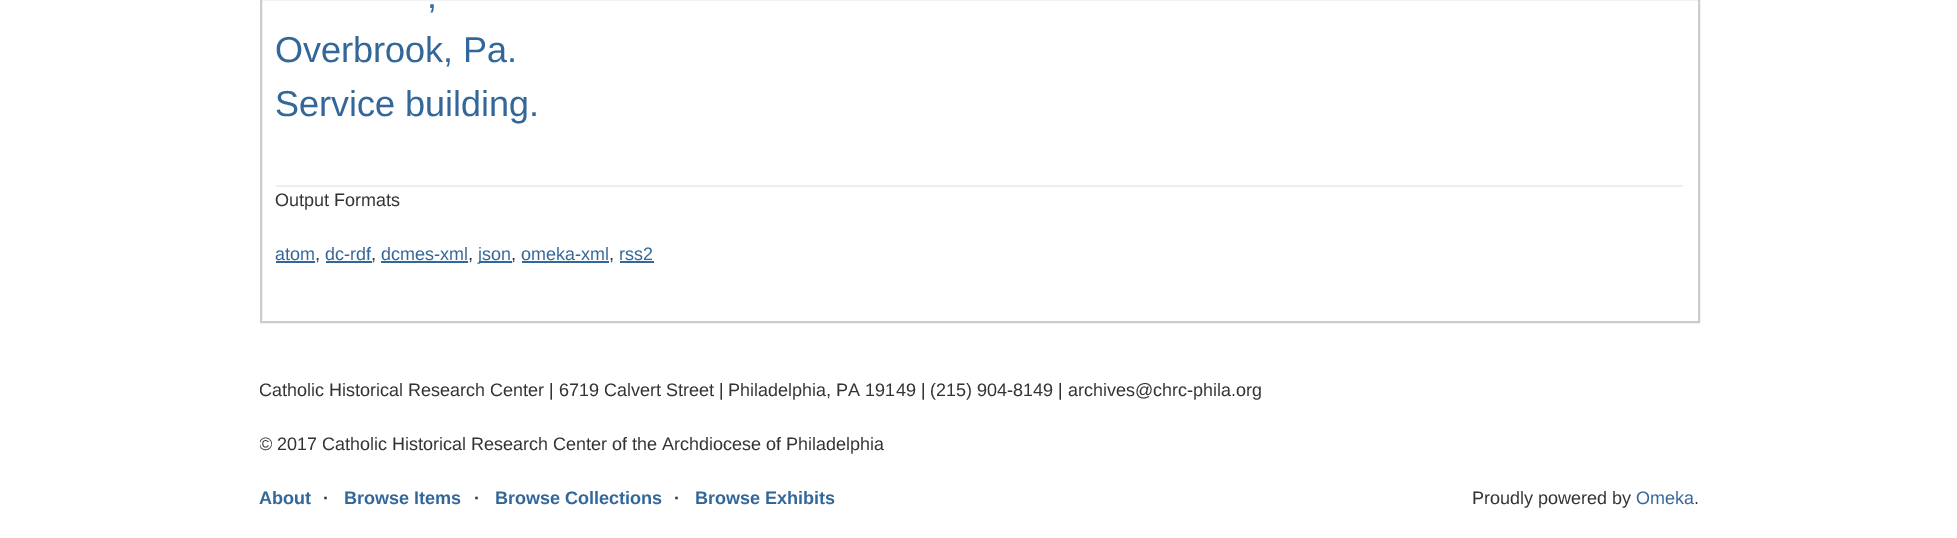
%!PS
<< /PageSize [1957 538] >> setpagedevice
/q/gsave load def
/Q_/grestore load def
/w/setlinewidth load def
/C { dup -16 bitshift 255 div exch dup -8 bitshift 255 and 255 div exch 255 and 255 div setrgbcolor } def
/F { [ exch dup neg 0 0 3 -1 roll 0 0 ] selectfont } def
/T { moveto show } def
/R { rectfill } def
0 538 translate 1 -1 scale
4 setmiterlimit
16#FFFFFF C
0 0 1957 538 R
16#CCCCCC C
2 w
261 -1 1438 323 rectstroke
16#EEEEEE C
276 185 1407 2 R
/LiberationSans-Regular 36 F
16#336699 C
(,) 427 8 T
(Overbrook, Pa.) 275 62 T
(Service building.) 275 116 T
/LiberationSans-Regular 18 F
16#333333 C
(Output Formats) 275 206 T
16#336699 C
(atom) 275 260 T
276 261 39 2 R
16#333333 C
(,) 315 260 T
16#336699 C
(dc-rdf) 325 260 T
326 261 46 2 R
16#333333 C
(,) 371 260 T
16#336699 C
(dcmes-xml) 381 260 T
381 261 87 2 R
16#333333 C
(,) 468 260 T
16#336699 C
479 261 33 2 R
(json) 478 260 T
16#333333 C
(,) 511 260 T
16#336699 C
(omeka-xml) 521 260 T
522 261 87 2 R
16#333333 C
(,) 609 260 T
16#336699 C
(rss2) 619 260 T
620 261 34 2 R
q
260 350 1440 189 rectclip
16#333333 C
(Catholic Historical Research Center | 6719 Calvert Street | Philadelphia, PA 19149 |) 259 396 T
Q_
16#333333 C
(\(215\) 904-8149 | archives@chrc-phila.org) 930 396 T
q
260 350 1440 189 rectclip
(© 2017 Catholic Historical Research Center of the Archdiocese of Philadelphia) 259 450 T
Q_
/LiberationSans-Bold 18 F
16#336699 C
(About) 259 504 T
16#333333 C
(·) 323 504 T
16#336699 C
(Browse Items) 344 504 T
16#333333 C
(·) 474 504 T
16#336699 C
(Browse Collections) 495 504 T
16#333333 C
(·) 674 504 T
16#336699 C
(Browse Exhibits) 695 504 T
/LiberationSans-Regular 18 F
16#333333 C
(Proudly powered by) 1472 504 T
16#336699 C
(Omeka) 1636 504 T
16#333333 C
(.) 1694 504 T
showpage
